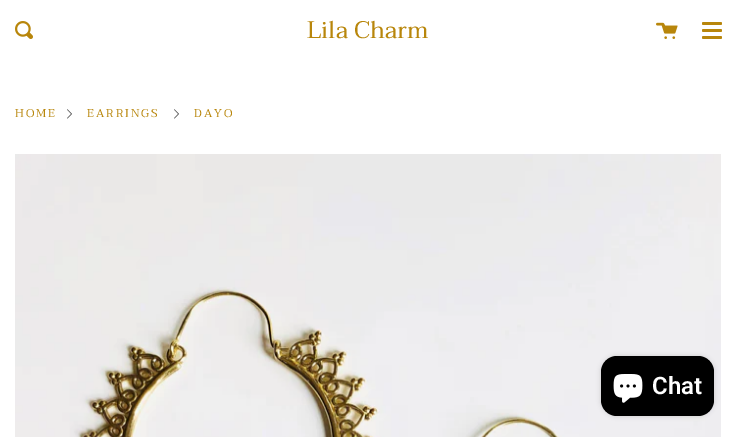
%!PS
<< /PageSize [736 437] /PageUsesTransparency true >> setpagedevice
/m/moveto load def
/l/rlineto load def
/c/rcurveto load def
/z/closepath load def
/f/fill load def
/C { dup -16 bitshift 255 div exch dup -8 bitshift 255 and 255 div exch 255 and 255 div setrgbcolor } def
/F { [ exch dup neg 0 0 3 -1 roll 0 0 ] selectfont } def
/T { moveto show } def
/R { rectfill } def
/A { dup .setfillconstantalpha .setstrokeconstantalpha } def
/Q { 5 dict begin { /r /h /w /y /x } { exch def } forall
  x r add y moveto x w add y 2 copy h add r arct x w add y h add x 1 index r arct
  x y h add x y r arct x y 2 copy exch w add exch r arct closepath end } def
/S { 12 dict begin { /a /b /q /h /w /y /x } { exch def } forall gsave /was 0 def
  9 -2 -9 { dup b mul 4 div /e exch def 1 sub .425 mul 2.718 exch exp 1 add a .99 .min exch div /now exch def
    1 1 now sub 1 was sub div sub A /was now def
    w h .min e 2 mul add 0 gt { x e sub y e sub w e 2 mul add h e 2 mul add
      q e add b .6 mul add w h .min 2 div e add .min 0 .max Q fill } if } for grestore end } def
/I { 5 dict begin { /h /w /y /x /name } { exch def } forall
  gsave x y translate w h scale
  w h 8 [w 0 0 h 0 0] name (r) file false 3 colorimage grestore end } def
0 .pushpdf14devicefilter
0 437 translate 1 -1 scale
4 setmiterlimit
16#FFFFFF C
0 0 736 437 R
/Taviraj-Regular 24 F
16#B8860B C
(Lila Charm) 307 38 T
(1.rgb) 15 21 18 18 I
(2.rgb) 656 22 22 17 I
703.5 22 m 15.5 0 l 0 3 l -15.5 0 l -1 0 -1.5 -.5 -1.5 -1.5 c 0 -1 .5 -1.5 1.5 -1.5 c z f
705 22 m 15.5 0 l 1 0 1.5 .5 1.5 1.5 c 0 1 -.5 1.5 -1.5 1.5 c -15.5 0 l z f
703.5 29 m 15.5 0 l 0 3 l -15.5 0 l -1 0 -1.5 -.5 -1.5 -1.5 c 0 -1 .5 -1.5 1.5 -1.5 c z f
705 29 m 15.5 0 l 1 0 1.5 .5 1.5 1.5 c 0 1 -.5 1.5 -1.5 1.5 c -15.5 0 l z f
703.5 36 m 15.5 0 l 0 3 l -15.5 0 l -1 0 -1.5 -.5 -1.5 -1.5 c 0 -1 .5 -1.5 1.5 -1.5 c z f
705 36 m 15.5 0 l 1 0 1.5 .5 1.5 1.5 c 0 1 -.5 1.5 -1.5 1.5 c -15.5 0 l z f
/Taviraj-Regular 11.25 F
15 117 m 2 0 (HOME) ashow
(3.rgb) 67 109 5 10 I
87 117 m 2 0 (EARRINGS) ashow
(3.rgb) 174 109 5 10 I
194 117 m 2 0 (DAYO) ashow
(4.rgb) 15 154 706 283 I
16#000000 C
601 356 113 60 16 2.5 .15 S
601 356 113 60 16 Q f
(5.rgb) 613 374 30 29 I
/Roboto-SemiBold 24 F
16#FFFFFF C
(Chat) 652 394 T
.poppdf14devicefilter showpage
